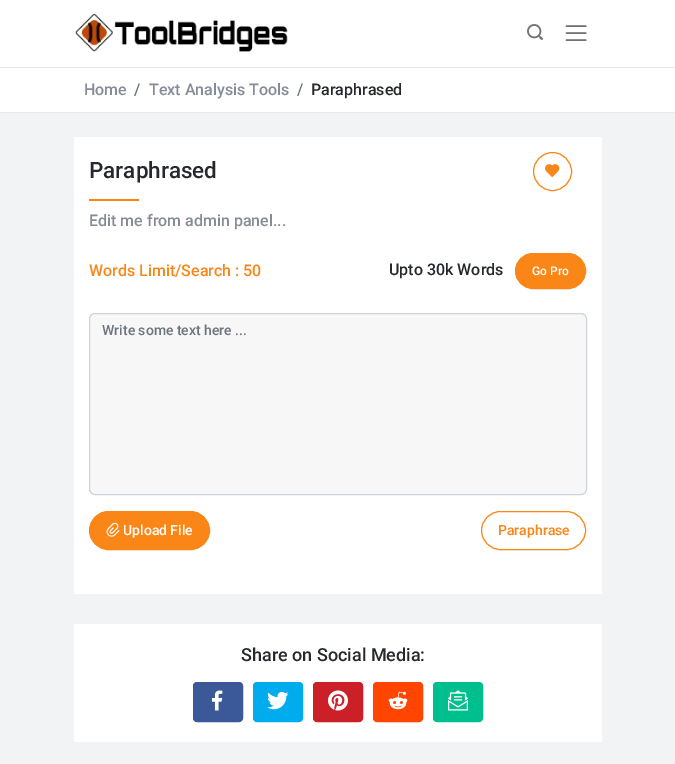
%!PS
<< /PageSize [675 764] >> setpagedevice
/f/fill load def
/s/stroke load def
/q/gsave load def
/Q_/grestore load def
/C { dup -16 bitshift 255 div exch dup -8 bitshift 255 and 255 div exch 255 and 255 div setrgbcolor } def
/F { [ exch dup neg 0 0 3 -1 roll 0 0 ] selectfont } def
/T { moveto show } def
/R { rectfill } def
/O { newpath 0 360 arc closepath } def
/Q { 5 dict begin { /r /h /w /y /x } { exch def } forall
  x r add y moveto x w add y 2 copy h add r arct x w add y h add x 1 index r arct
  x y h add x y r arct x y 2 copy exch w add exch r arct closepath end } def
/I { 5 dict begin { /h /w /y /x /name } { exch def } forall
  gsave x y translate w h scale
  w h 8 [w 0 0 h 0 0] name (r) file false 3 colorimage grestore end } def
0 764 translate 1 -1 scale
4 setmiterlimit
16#F2F3F4 C
0 0 675 764 R
16#FFFFFF C
0 0 675 67 R
(1.rgb) 75 13 213 39 I
(2.rgb) 527 24 16 16 I
(3.rgb) 565 25 22 16 I
0 68 675 44 R
16#E8E8E8 C
0 67 675 1 R
0 112 675 1 R
/Roboto-Medium 16 F
16#858B97 C
(Home) 84 95 T
16#6C757D C
(/) 134 95 T
16#858B97 C
(Text Analysis Tools) 149 95 T
16#6C757D C
(/) 297 95 T
16#26282D C
(Paraphrased) 311 95 T
16#FFFFFF C
74 137 528 457 R
/Roboto-Medium 22.5 F
16#26282D C
(Paraphrased) 89 178 T
16#FA8617 C
89 199 50 2 R
552.5 171.5 19 O s
(4.rgb) 545 164 15 14 I
/Roboto-Medium 16 F
16#858B97 C
(Edit me from admin panel...) 89 226 T
16#FA8617 C
(Words Limit/Search : 50) 89 276 T
16#26282D C
(Upto 30k Words) 389 275 T
16#FA8617 C
515.5 253.5 70 35 17.5 Q q f Q_
s
/Roboto-Medium 12 F
16#FFFFFF C
(Go Pro) 532 275 T
16#F7F7F7 C
89.5 313.5 497 181 5.5 Q q f Q_
16#CED4DA C
s
/Roboto-Medium 14 F
16#6C757D C
(Write some text here ...) 102 335 T
16#FA8617 C
89.5 511.5 120 38 19 Q q f Q_
s
(5.rgb) 106 522 14 15 I
16#FFFFFF C
(Upload File) 123 535 T
16#FA8617 C
481.5 511.5 104 38 19 Q s
(Paraphrase) 498 535 T
16#FFFFFF C
74 624 528 118 R
/Roboto-Medium 18 F
16#26282D C
(Share on Social Media:) 241 661 T
16#3B5998 C
193.5 682.5 49 39 3.5 Q q f Q_
s
(6.rgb) 212 690 11 21 I
16#00ACED C
253.5 682.5 49 39 3.5 Q q f Q_
s
(7.rgb) 267 691 22 19 I
16#CB2027 C
313.5 682.5 49 39 3.5 Q q f Q_
s
(8.rgb) 328 690 20 21 I
16#FF4500 C
373.5 682.5 49 39 3.5 Q q f Q_
s
(9.rgb) 388 691 20 19 I
16#00BF8F C
433.5 682.5 49 39 3.5 Q q f Q_
s
(10.rgb) 448 690 20 21 I
showpage
